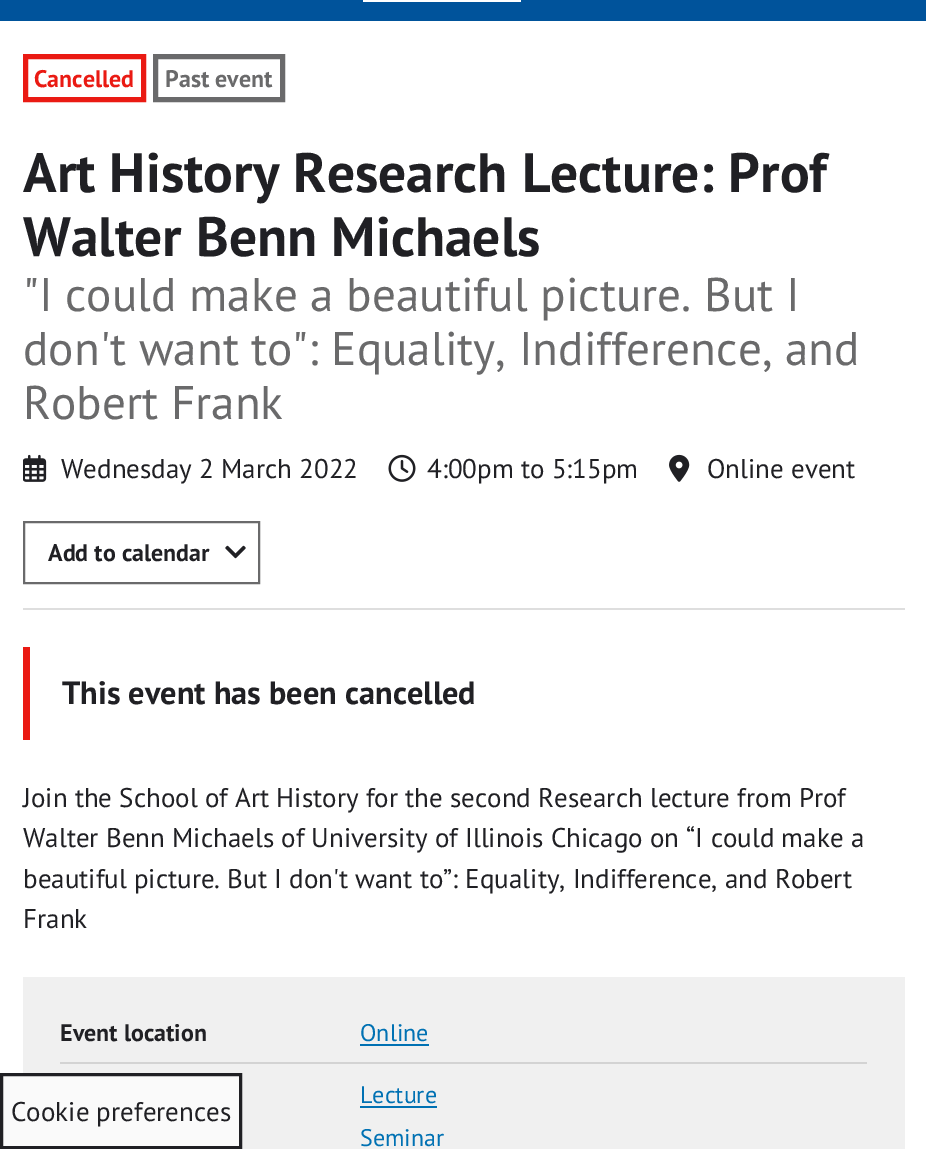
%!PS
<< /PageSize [926 1149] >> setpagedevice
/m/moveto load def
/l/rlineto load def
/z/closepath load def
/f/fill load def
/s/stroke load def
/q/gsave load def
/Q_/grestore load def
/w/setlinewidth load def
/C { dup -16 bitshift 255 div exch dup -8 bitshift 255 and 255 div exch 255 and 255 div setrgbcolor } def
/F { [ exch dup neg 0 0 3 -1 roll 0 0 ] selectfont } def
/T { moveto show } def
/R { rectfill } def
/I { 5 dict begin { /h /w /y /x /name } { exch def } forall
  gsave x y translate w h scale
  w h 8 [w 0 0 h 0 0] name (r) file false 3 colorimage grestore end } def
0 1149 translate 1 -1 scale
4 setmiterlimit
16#FFFFFF C
0 0 926 1149 R
16#00539B C
0 0 926 21 R
16#FFFFFF C
363 0 158 2 R
16#EA1A13 C
5 w
25.5 56.5 118 43 rectstroke
/PTSans-Bold 24 F
(Cancelled) 34 87 T
16#6A6A6B C
155.5 56.5 127 43 rectstroke
(Past event) 165 87 T
16#DEDEDE C
23 608 882 2 R
/PTSans-Bold 55.5 F
16#202024 C
(Art History Research Lecture: Prof) 23 192 T
(Walter Benn Michaels) 23 256 T
/PTSans-Regular 47.25 F
16#6A6A6B C
("I could make a beautiful picture. But I) 23 311 T
(don't want to": Equality, Indifference, and) 23 365 T
(Robert Frank) 23 419 T
(1.rgb) 23 454 24 28 I
/PTSans-Regular 27 F
16#202024 C
(Wednesday 2 March 2022) 61 478 T
(2.rgb) 388 454 28 28 I
(4:00pm to 5:15pm) 427 478 T
(3.rgb) 669 454 21 28 I
(Online event) 707 478 T
16#6A6A6B C
2 w
24 522 235 61 rectstroke
/PTSans-Bold 24 F
16#202024 C
(Add to calendar) 48 561 T
(4.rgb) 225 545 21 14 I
16#EA1A13 C
23 647 7 93 R
/PTSans-Bold 32.3 F
16#202024 C
(This event has been cancelled) 62 704 T
/PTSans-Regular 27 F
(Join the School of Art History for the second Research lecture from Prof) 23 807 T
(Walter Benn Michaels of University of Illinois Chicago on “I could make a) 23 847 T
(beautiful picture. But I don't want to”: Equality, Indifference, and Robert) 23 888 T
(Frank) 23 928 T
16#F0F0F0 C
23 977 882 172 R
/PTSans-Bold 24 F
16#202024 C
(Event location) 60 1041 T
/PTSans-Regular 24 F
16#0071B3 C
(Online) 360 1041 T
360 1044 69 2 R
16#D3D3D3 C
60 1062 807 2 R
16#0071B3 C
(Lecture) 360 1103 T
360 1106 77 2 R
(Seminar) 360 1146 T
16#FAFAFA C
1.5 1074.5 m 239 0 l 0 73 l -239 0 l z q f Q_
16#202024 C
3 w
s
/PTSans-Regular 27 F
(Cookie preferences) 11 1121 T
showpage
